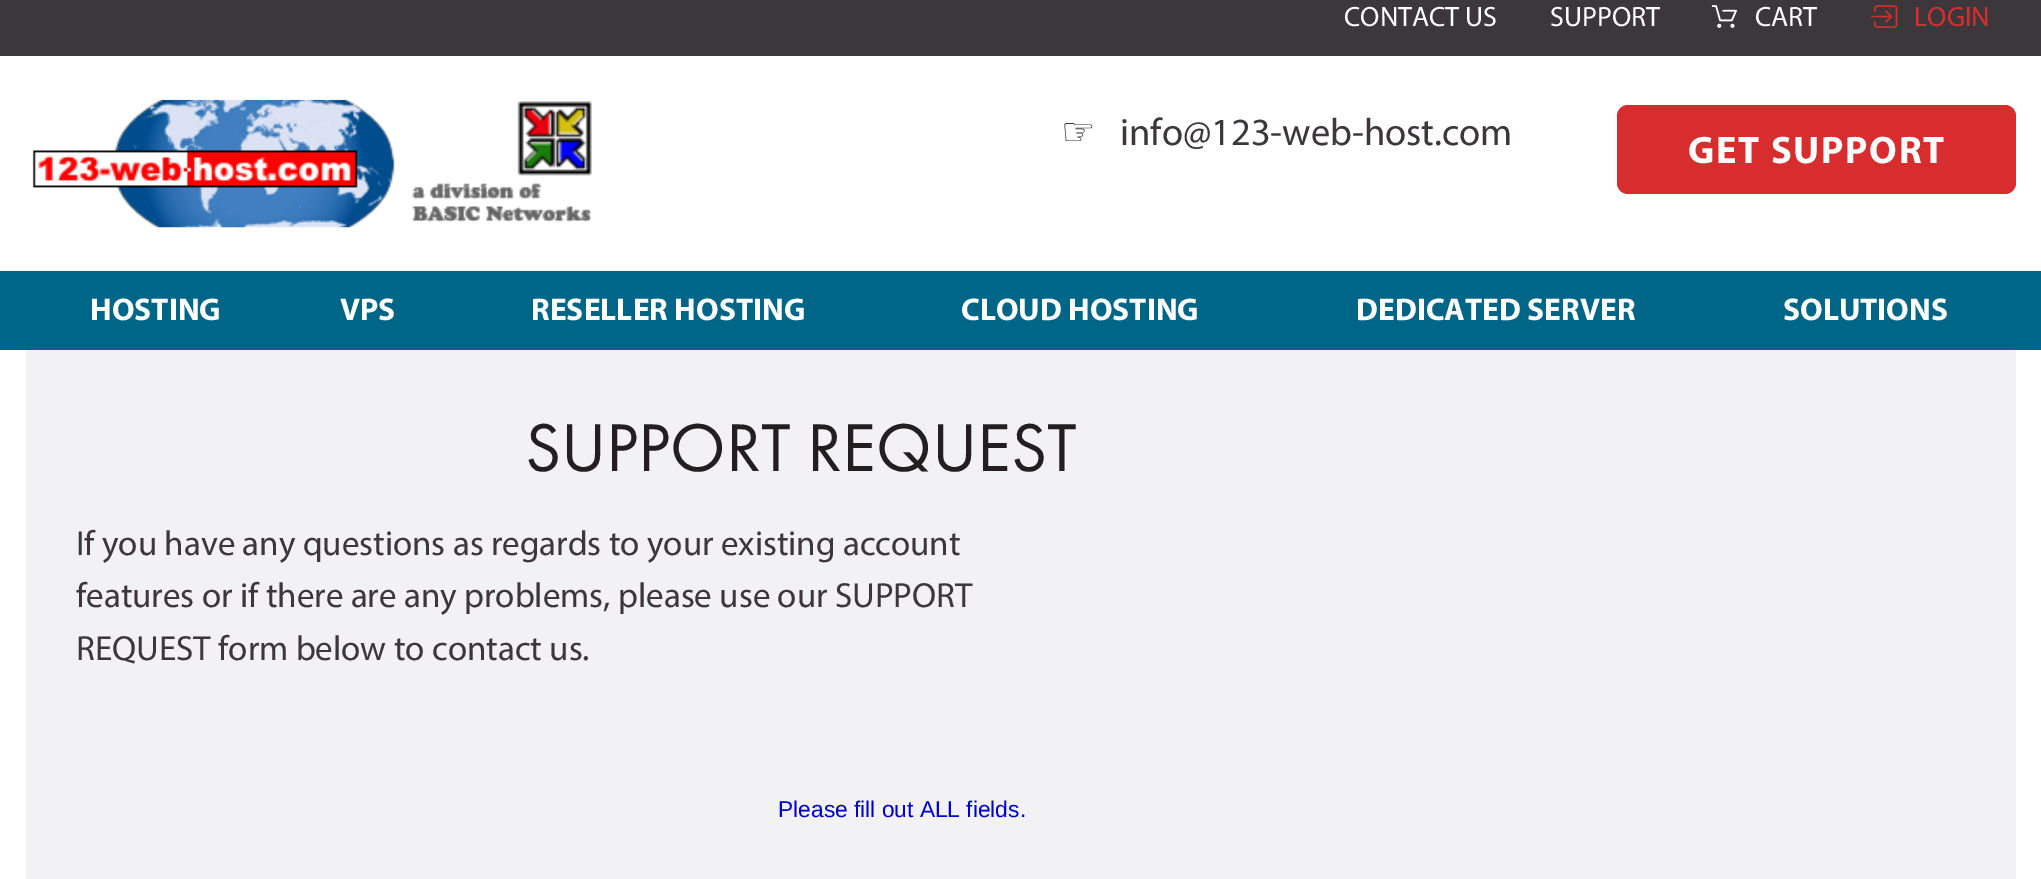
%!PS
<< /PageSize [2041 879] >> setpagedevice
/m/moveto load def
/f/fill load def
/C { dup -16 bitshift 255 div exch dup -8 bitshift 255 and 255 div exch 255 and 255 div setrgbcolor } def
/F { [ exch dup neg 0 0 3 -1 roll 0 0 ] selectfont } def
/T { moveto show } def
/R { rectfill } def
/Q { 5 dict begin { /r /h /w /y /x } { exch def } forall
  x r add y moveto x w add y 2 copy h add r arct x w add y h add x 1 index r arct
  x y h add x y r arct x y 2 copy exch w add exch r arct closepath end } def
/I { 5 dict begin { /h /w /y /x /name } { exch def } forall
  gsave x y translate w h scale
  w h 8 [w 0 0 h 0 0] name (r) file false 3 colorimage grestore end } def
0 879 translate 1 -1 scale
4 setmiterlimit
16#FFFFFF C
0 0 2041 879 R
16#3C373A C
0 0 2041 56 R
/Myriad-Regular 28 F
16#FFFFFF C
(CONTACT US) 1344 26 T
(SUPPORT) 1550 26 T
(1.rgb) 1711 5 26 23 I
(CART) 1755 26 T
(2.rgb) 1870 5 28 23 I
16#D82D2F C
(LOGIN) 1914 26 T
(3.rgb) 32 99 560 129 I
/DejaVuSans-Regular 38.5 F
16#3C373A C
(☞) 1061 145 T
/Myriad-Regular 38.5 F
(info@123-web-host.com) 1120 145 T
16#D82D2F C
1617 105 399 89 11 Q f
/Myriad-Bold 38.5 F
16#FFFFFF C
1688 163 m 1.75 0 (GET SUPPORT) ashow
16#006687 C
0 271 2041 79 R
/Myriad-Bold 31.5 F
16#FFFFFF C
(HOSTING) 90 320 T
(VPS) 340 320 T
(RESELLER HOSTING) 531 320 T
(CLOUD HOSTING) 961 320 T
(DEDICATED SERVER) 1356 320 T
(SOLUTIONS) 1783 320 T
16#F2F1F3 C
26 350 1990 529 R
/FuturaPT-Regular 70 F
16#231F20 C
(SUPPORT REQUEST) 525 471 T
/Myriad-Regular 35 F
16#3C373A C
(If you have any questions as regards to your existing account) 76 555 T
(features or if there are any problems, please use our SUPPORT) 76 607 T
(REQUEST form below to contact us.) 76 660 T
/LiberationSans-Regular 22.75 F
16#0000CC C
(Please fill out ALL fields.) 778 817 T
showpage
